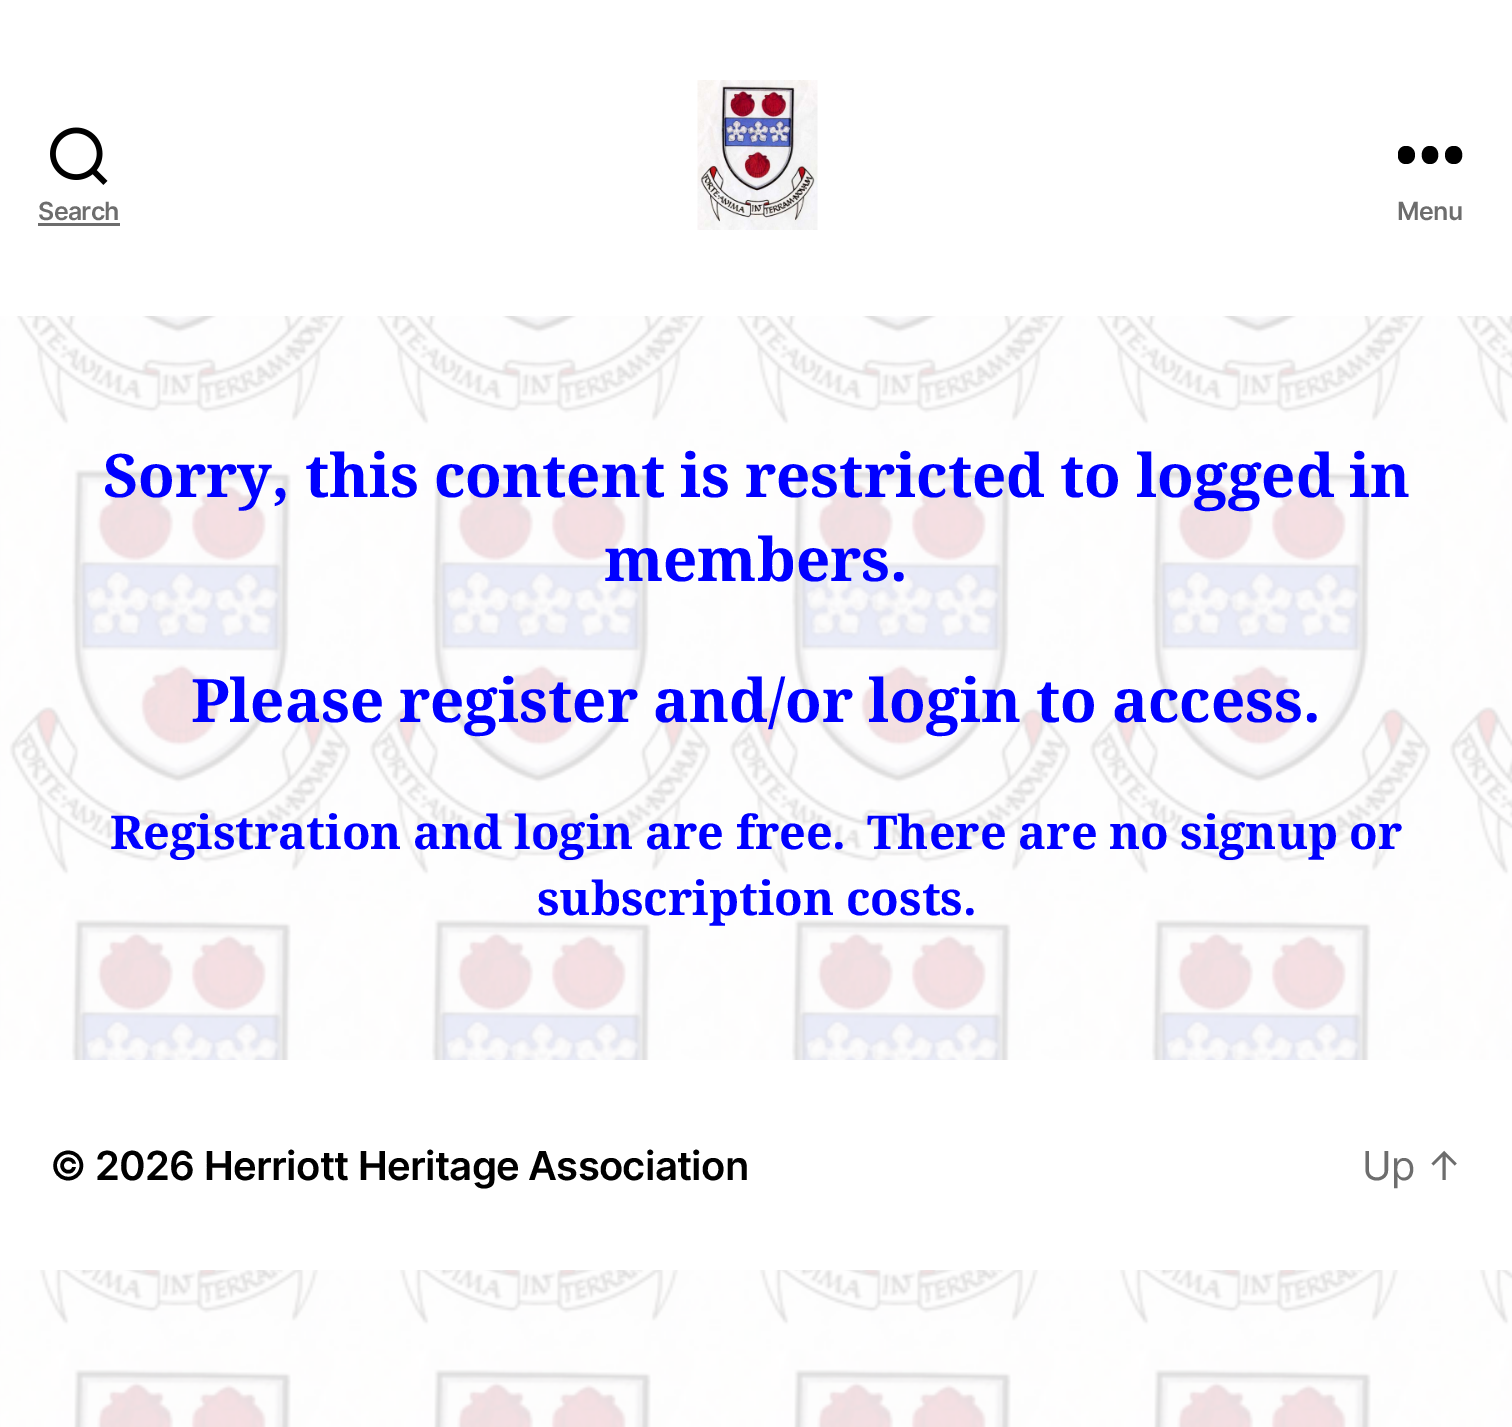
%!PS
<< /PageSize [1512 1427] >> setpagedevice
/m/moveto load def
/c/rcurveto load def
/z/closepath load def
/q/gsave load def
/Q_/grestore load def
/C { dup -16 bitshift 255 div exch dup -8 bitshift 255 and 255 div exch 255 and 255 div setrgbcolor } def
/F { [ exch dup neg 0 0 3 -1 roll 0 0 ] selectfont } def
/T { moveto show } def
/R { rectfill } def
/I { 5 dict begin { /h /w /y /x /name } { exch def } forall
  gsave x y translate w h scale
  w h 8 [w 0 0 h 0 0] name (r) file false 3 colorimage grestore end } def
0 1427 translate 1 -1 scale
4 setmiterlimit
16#FFFFFF C
0 0 1512 1427 R
(1.rgb) 0 316 1512 1111 I
(2.rgb) 50 127 58 58 I
/Inter-SemiBold 25 F
16#6D6D6D C
38 220 m -.7 0 (Search) ashow
38 223 82 3 R
(3.rgb) 697 80 121 150 I
q
1398 145 65 20 rectclip
16#000000 C
1406 164 m -11 0 -11 -18 0 -18 c 12 0 12 18 0 18 c z 1430 164 m -11 0 -11 -18 0 -18 c 11 0 11 18 0 18 c z 1454 164 m -12 0 -12 -18 0 -18 c 11 0 11 18 0 18 c z eofill
Q_
1397 220 m -.7 0 (Menu) ashow
/NotoSerif-Bold 60 F
16#0000FF C
103 497 m -.75 0 32 (Sorry, this content is restricted to logged in) widthshow
(members.) 604 581 T
191 722 m -.75 0 32 (Please register and/or login to access.) widthshow
/NotoSerif-Bold 46.7 F
110 849 m -.5 0 32 (Registration and login are free.) widthshow
867 849 m -.5 0 32 (There are no signup or) widthshow
537 915 m -.5 0 32 (subscription costs.) widthshow
16#FFFFFF C
0 1060 1512 210 R
/Inter-SemiBold 40 F
16#000000 C
50 1180 m -.7 0 (© 2026 Herriott Heritage Association) ashow
/Inter-Regular 40 F
16#6D6D6D C
1362 1180 m -.7 0 (Up ↑) ashow
showpage
